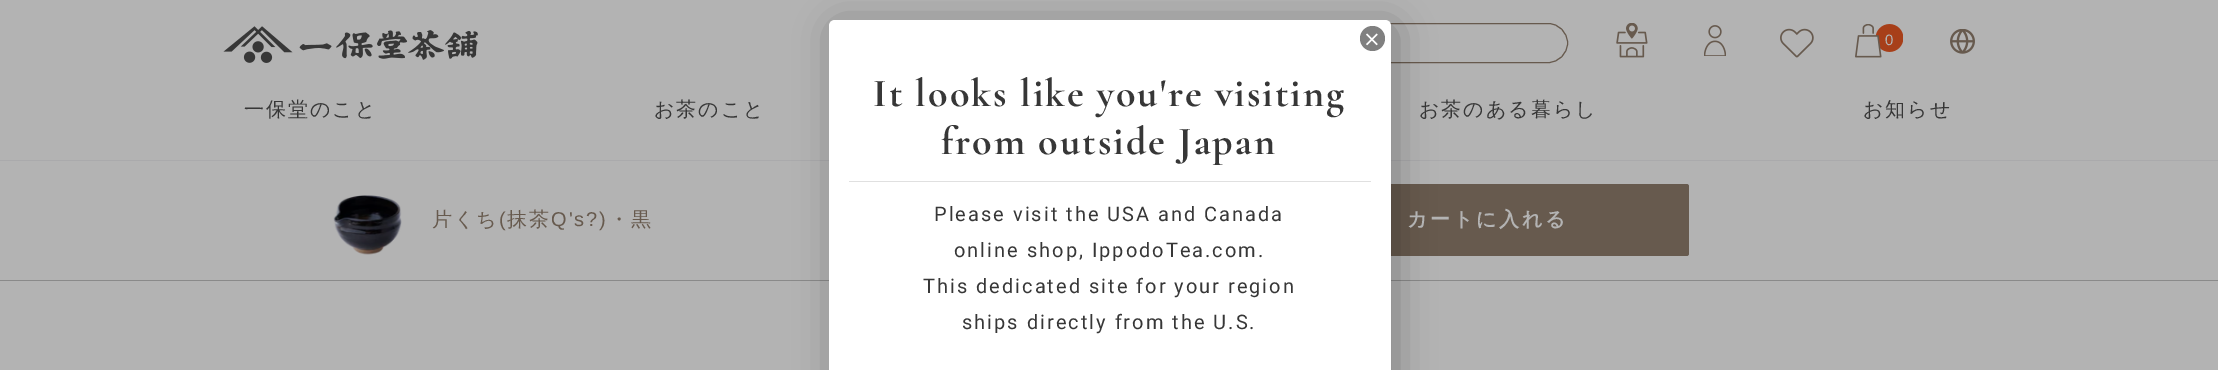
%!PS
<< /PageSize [2218 370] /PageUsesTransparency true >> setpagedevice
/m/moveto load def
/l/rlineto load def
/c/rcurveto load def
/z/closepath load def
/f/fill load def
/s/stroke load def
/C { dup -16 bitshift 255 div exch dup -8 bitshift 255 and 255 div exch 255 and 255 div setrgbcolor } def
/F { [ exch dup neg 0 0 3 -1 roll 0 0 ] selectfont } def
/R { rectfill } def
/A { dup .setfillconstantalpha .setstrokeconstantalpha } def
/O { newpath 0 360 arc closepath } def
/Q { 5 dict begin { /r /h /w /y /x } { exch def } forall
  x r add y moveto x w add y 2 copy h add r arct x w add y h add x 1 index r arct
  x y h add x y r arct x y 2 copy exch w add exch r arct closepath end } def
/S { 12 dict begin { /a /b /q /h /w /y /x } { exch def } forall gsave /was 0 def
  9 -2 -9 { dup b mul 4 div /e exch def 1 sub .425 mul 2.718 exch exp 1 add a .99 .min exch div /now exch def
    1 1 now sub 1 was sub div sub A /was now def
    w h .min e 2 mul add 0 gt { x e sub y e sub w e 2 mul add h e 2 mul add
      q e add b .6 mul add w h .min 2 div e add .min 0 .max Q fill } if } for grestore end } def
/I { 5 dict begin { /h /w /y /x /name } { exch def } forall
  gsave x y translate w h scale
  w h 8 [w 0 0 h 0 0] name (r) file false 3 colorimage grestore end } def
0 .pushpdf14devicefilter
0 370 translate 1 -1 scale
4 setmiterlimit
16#B3B3B3 C
0 0 2218 370 R
16#AAAAAC C
0 160 2218 1 R
(1.rgb) 223 26 255 37 I
16#675A4E C
1323.5 23.5 244 39 19.5 Q s
(2.rgb) 1616 23 32 35 I
(3.rgb) 1704 25 22 31 I
(4.rgb) 1780 28 34 30 I
(5.rgb) 1855 24 48 34 I
/LiberationSans-Regular 15 F
16#B3B3B3 C
1885 45 m 1 0 (0) ashow
(6.rgb) 1950 29 25 25 I
/WenQuanYiZenHei-Medium 20 F
16#373737 C
244 116 m 2 0 (一保堂のこと) ashow
654 116 m 2 0 (お茶のこと) ashow
1419 116 m 2 0 (お茶のある暮らし) ashow
1863 116 m 2 0 (お知らせ) ashow
16#8A8A8A C
0 280 2218 1 R
16#675A4E C
1289 184 400 72 2.5 Q f
16#000000 C
834 25 562 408 6 19 .3 S
16#FFFFFF C
835 20 m 550 0 l 3.5 0 6 2.5 6 6 c 0 344 l -562 0 l 0 -344 l 0 -3.5 2.5 -6 6 -6 c z f
16#808080 C
1372.5 38.5 12.5 O f
(7.rgb) 1366 33 12 13 I
/CormorantGaramond-Bold 40 F
16#373737 C
873 106 m 2 0 (It looks like you're visiting) ashow
941 154 m 2 0 (from outside Japan) ashow
16#E0E0E0 C
849 181 522 1 R
/Roboto-Regular 20 F
16#373737 C
934 221 m 2 0 (Please visit the USA and Canada) ashow
954 257 m 2 0 (online shop, IppodoTea.com.) ashow
923 293 m 2 0 (This dedicated site for your region) ashow
962 329 m 2 0 (ships directly from the U.S.) ashow
(8.rgb) 333 195 69 60 I
/WenQuanYiZenHei-Medium 20 F
16#675A4E C
432 226 m 2 0 (片くち) ashow
/LiberationSans-Regular 20 F
499 226 m 2 0 (\() ashow
/WenQuanYiZenHei-Medium 20 F
507 226 m 2 0 (抹茶) ashow
/LiberationSans-Regular 20 F
551 226 m 2 0 (Q's?\)) ashow
/WenQuanYiZenHei-Medium 20 F
609 226 m 2 0 (・黒) ashow
/WenQuanYiZenHei-Bold 20 F
16#B3B3B3 C
1407 226 m 2.75 0 (カートに入れる) ashow
.poppdf14devicefilter showpage
